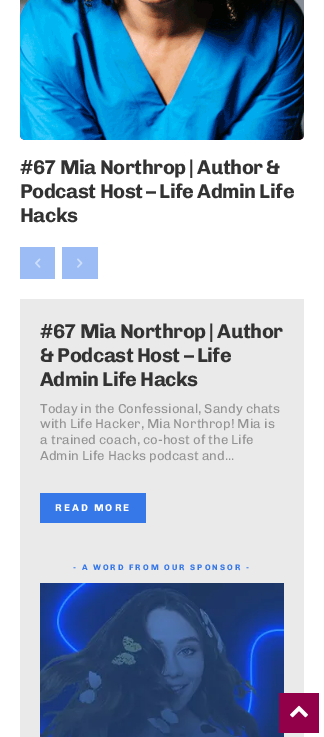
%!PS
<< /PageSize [324 737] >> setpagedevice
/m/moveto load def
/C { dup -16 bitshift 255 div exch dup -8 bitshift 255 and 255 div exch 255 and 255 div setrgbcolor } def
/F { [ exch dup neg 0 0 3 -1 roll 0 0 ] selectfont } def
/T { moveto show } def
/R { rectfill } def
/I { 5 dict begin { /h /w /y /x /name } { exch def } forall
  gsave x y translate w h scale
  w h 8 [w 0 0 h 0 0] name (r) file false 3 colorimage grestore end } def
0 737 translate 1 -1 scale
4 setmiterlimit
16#FFFFFF C
0 0 324 737 R
(2.rgb) 20 135 284 5 I
(1.rgb) 20 0 284 140 I
/Chivo-Bold 20 F
16#333333 C
20 174 m -.5 0 (#67 Mia Northrop | Author &) ashow
20 198 m -.5 0 (Podcast Host – Life Admin Life) ashow
20 222 m -.5 0 (Hacks) ashow
16#9BBCF4 C
20 247 35 32 R
(3.rgb) 35 258 6 10 I
62 247 36 32 R
(4.rgb) 77 258 6 10 I
16#EAEAEA C
20 299 284 438 R
16#333333 C
40 338 m -.5 0 (#67 Mia Northrop | Author) ashow
40 362 m -.5 0 (& Podcast Host – Life) ashow
40 386 m -.5 0 (Admin Life Hacks) ashow
/Chivo-Regular 13 F
16#939393 C
(Today in the Confessional, Sandy chats) 40 413 T
(with Life Hacker, Mia Northrop! Mia is) 40 428 T
(a trained coach, co-host of the Life) 40 444 T
(Admin Life Hacks podcast and...) 40 460 T
16#3778E8 C
40 493 106 30 R
/Chivo-Bold 10 F
16#FFFFFF C
55 511 m 2 0 (READ MORE) ashow
/Chivo-Bold 8 F
16#3778E8 C
73 570 m 2 0 (- A WORD FROM OUR SPONSOR -) ashow
(5.rgb) 40 583 244 154 I
16#910048 C
279 693 40 40 R
(6.rgb) 290 705 18 13 I
showpage
